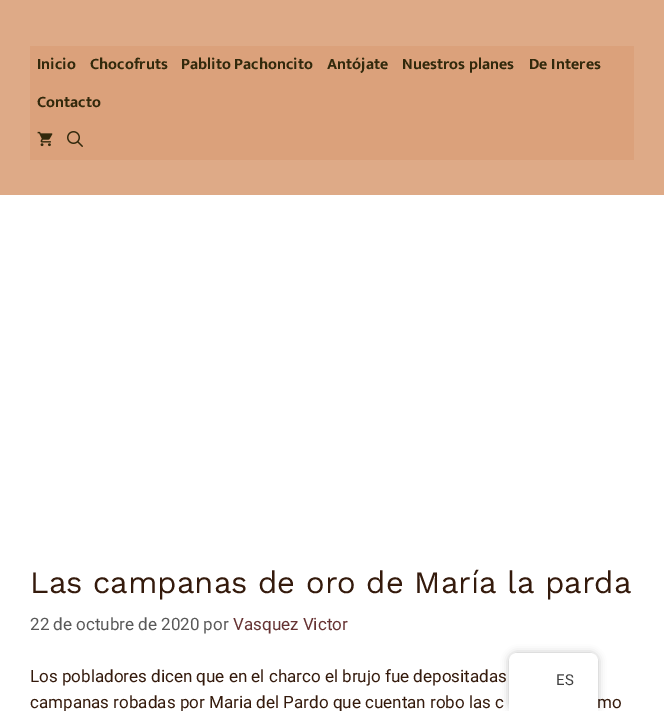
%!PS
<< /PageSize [664 711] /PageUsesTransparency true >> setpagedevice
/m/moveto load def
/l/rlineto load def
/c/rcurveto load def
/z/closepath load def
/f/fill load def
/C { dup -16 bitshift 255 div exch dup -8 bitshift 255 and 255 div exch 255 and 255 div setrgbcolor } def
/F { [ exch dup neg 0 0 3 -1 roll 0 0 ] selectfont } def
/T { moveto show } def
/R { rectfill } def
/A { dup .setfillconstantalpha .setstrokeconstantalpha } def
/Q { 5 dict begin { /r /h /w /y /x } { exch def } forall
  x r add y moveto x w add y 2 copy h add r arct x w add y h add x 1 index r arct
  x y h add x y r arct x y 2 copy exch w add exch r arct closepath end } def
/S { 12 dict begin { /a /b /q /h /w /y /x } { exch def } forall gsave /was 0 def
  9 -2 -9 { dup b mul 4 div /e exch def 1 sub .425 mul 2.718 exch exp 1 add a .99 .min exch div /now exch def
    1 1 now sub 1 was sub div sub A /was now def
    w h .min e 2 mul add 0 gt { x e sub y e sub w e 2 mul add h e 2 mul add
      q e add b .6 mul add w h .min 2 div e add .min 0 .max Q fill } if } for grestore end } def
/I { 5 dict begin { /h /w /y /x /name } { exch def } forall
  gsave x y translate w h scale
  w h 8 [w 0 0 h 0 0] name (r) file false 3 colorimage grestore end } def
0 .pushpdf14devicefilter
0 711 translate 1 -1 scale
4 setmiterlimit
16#DEAA87 C
0 0 664 711 R
16#DBA17B C
30 46 604 114 R
/EkMukta-Bold 16 F
16#32290C C
(Inicio) 37 69 T
(Chocofruts) 90 69 T
(Pablito Pachoncito) 181 69 T
(Antójate) 327 69 T
(Nuestros planes) 402 69 T
(De Interes) 529 69 T
(Contacto) 37 107 T
(1.rgb) 37 131 16 16 I
(2.rgb) 67 131 16 16 I
16#FFFFFF C
0 195 664 516 R
/WorkSans-Regular 31 F
16#341A0C C
(Las campanas de oro de María la parda) 30 593 T
/Heebo-Regular 17 F
16#595959 C
(22 de octubre de 2020 por) 30 630 T
16#663333 C
(Vasquez Victor) 233 630 T
16#341A0C C
(Los pobladores dicen que en el charco el brujo fue depositadas) 30 682 T
(campanas robadas por Maria del Pardo que cuentan robo las c) 30 708 T
(mo) 597 708 T
16#000000 C
509 653 89 58 8 4 .25 S
16#FFFFFF C
517 653 m 73 0 l 4.5 0 8 3.5 8 8 c 0 50 l -89 0 l 0 -50 l 0 -4.5 3.5 -8 8 -8 c z f
/Heebo-Regular 15 F
16#404040 C
(ES) 556 685 T
.poppdf14devicefilter showpage
